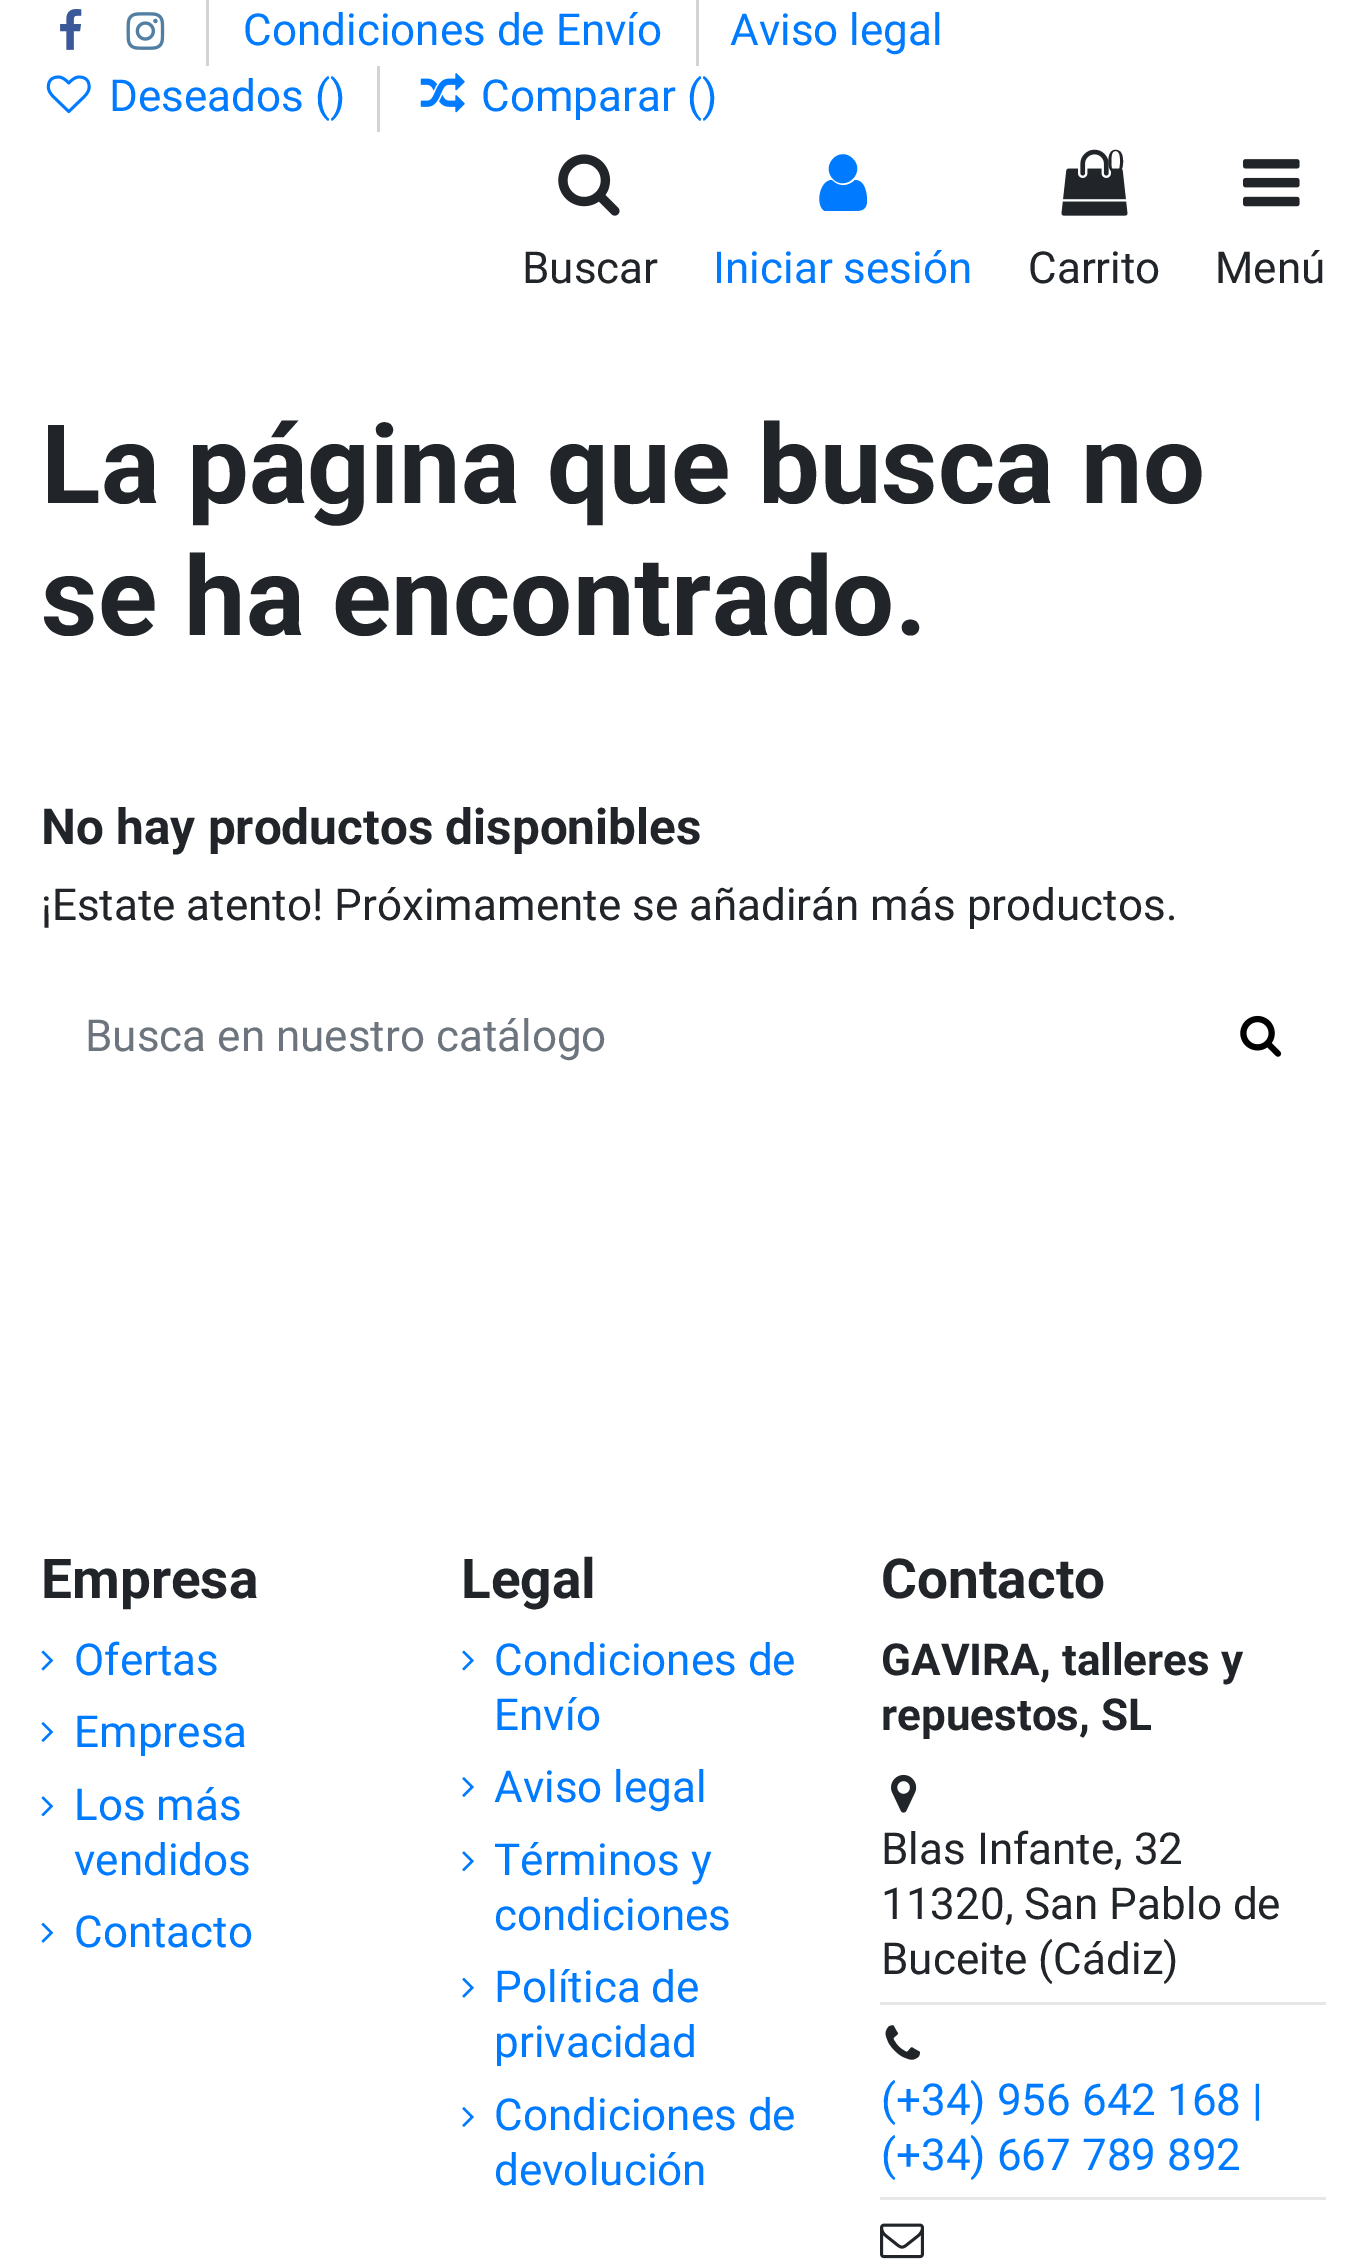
%!PS
<< /PageSize [1366 2266] >> setpagedevice
/m/moveto load def
/l/rlineto load def
/c/rcurveto load def
/z/closepath load def
/f/fill load def
/C { dup -16 bitshift 255 div exch dup -8 bitshift 255 and 255 div exch 255 and 255 div setrgbcolor } def
/F { [ exch dup neg 0 0 3 -1 roll 0 0 ] selectfont } def
/T { moveto show } def
/R { rectfill } def
/I { 5 dict begin { /h /w /y /x /name } { exch def } forall
  gsave x y translate w h scale
  w h 8 [w 0 0 h 0 0] name (r) file false 3 colorimage grestore end } def
0 2266 translate 1 -1 scale
4 setmiterlimit
16#FFFFFF C
0 0 1366 2266 R
(1.rgb) 60 9 22 41 I
(2.rgb) 126 12 39 38 I
16#D3D3D4 C
206 0 3 66 R
/Roboto-Regular 44 F
16#007BFF C
(Condiciones de Envío) 243 45 T
16#D3D3D4 C
696 0 3 66 R
16#007BFF C
(Aviso legal) 730 45 T
(3.rgb) 46 75 45 39 I
(Deseados \(\)) 109 111 T
16#D3D3D4 C
377 66 3 66 R
(4.rgb) 420 73 45 40 I
16#007BFF C
(Comparar \(\)) 481 111 T
(5.rgb) 558 154 62 62 I
16#212529 C
(Buscar) 522 283 T
16#007BFF C
867 201 m 0 9 -6 10 -13 10 c -29 0 l -10 -4 -6 -31 7 -31 c 6 7 16 7 23 0 c 10 0 12 13 12 21 c z 853 159 m 13 13 -7 33 -20 20 c -13 -14 7 -34 20 -20 c z f
(Iniciar sesión) 713 283 T
(6.rgb) 1061 149 67 67 I
/LiberationSerif-Regular 35 F
16#212529 C
(0) 1107 173 T
/Roboto-Regular 44 F
(Carrito) 1028 283 T
(7.rgb) 1243 159 57 48 I
(Menú) 1215 283 T
/Roboto-Bold 110 F
(La página que busca no) 41 503 T
(se ha encontrado.) 41 635 T
/Roboto-Bold 49.5 F
(No hay productos disponibles) 41 844 T
/Roboto-Regular 44 F
(¡Estate atento! Próximamente se añadirán más productos.) 41 920 T
16#6C757D C
(Busca en nuestro catálogo) 85 1051 T
(8.rgb) 1240 1015 42 42 I
/Roboto-Bold 55 F
16#212529 C
(Empresa) 41 1598 T
(9.rgb) 41 1650 13 21 I
/Roboto-Regular 44 F
16#007BFF C
(Ofertas) 74 1675 T
(10.rgb) 41 1722 12 20 I
(Empresa) 74 1747 T
(11.rgb) 41 1796 13 21 I
(Los más) 74 1820 T
(vendidos) 74 1875 T
(12.rgb) 41 1922 13 21 I
(Contacto) 74 1947 T
/Roboto-Bold 55 F
16#212529 C
(Legal) 461 1598 T
(13.rgb) 462 1650 12 21 I
/Roboto-Regular 44 F
16#007BFF C
(Condiciones de) 494 1675 T
(Envío) 494 1730 T
(14.rgb) 462 1777 12 20 I
(Aviso legal) 494 1802 T
(15.rgb) 462 1851 12 21 I
(Términos y) 494 1875 T
(condiciones) 494 1930 T
(16.rgb) 462 1977 12 21 I
(Política de) 494 2002 T
(privacidad) 494 2057 T
(14.rgb) 462 2107 12 20 I
(Condiciones de) 494 2130 T
(devolución) 494 2185 T
/Roboto-Bold 55 F
16#212529 C
(Contacto) 881 1598 T
/Roboto-Bold 44 F
(GAVIRA, talleres y) 881 1675 T
(repuestos, SL) 881 1730 T
(17.rgb) 891 1774 26 39 I
/Roboto-Regular 44 F
(Blas Infante, 32) 881 1864 T
(11320, San Pablo de) 881 1919 T
(Buceite \(Cádiz\)) 881 1974 T
16#E7E7E7 C
880 2002 446 3 R
(18.rgb) 885 2025 36 35 I
16#007BFF C
(\(+34\) 956 642 168 |) 881 2115 T
(\(+34\) 667 789 892) 881 2170 T
16#E7E7E7 C
880 2197 446 3 R
(19.rgb) 880 2223 44 36 I
showpage
